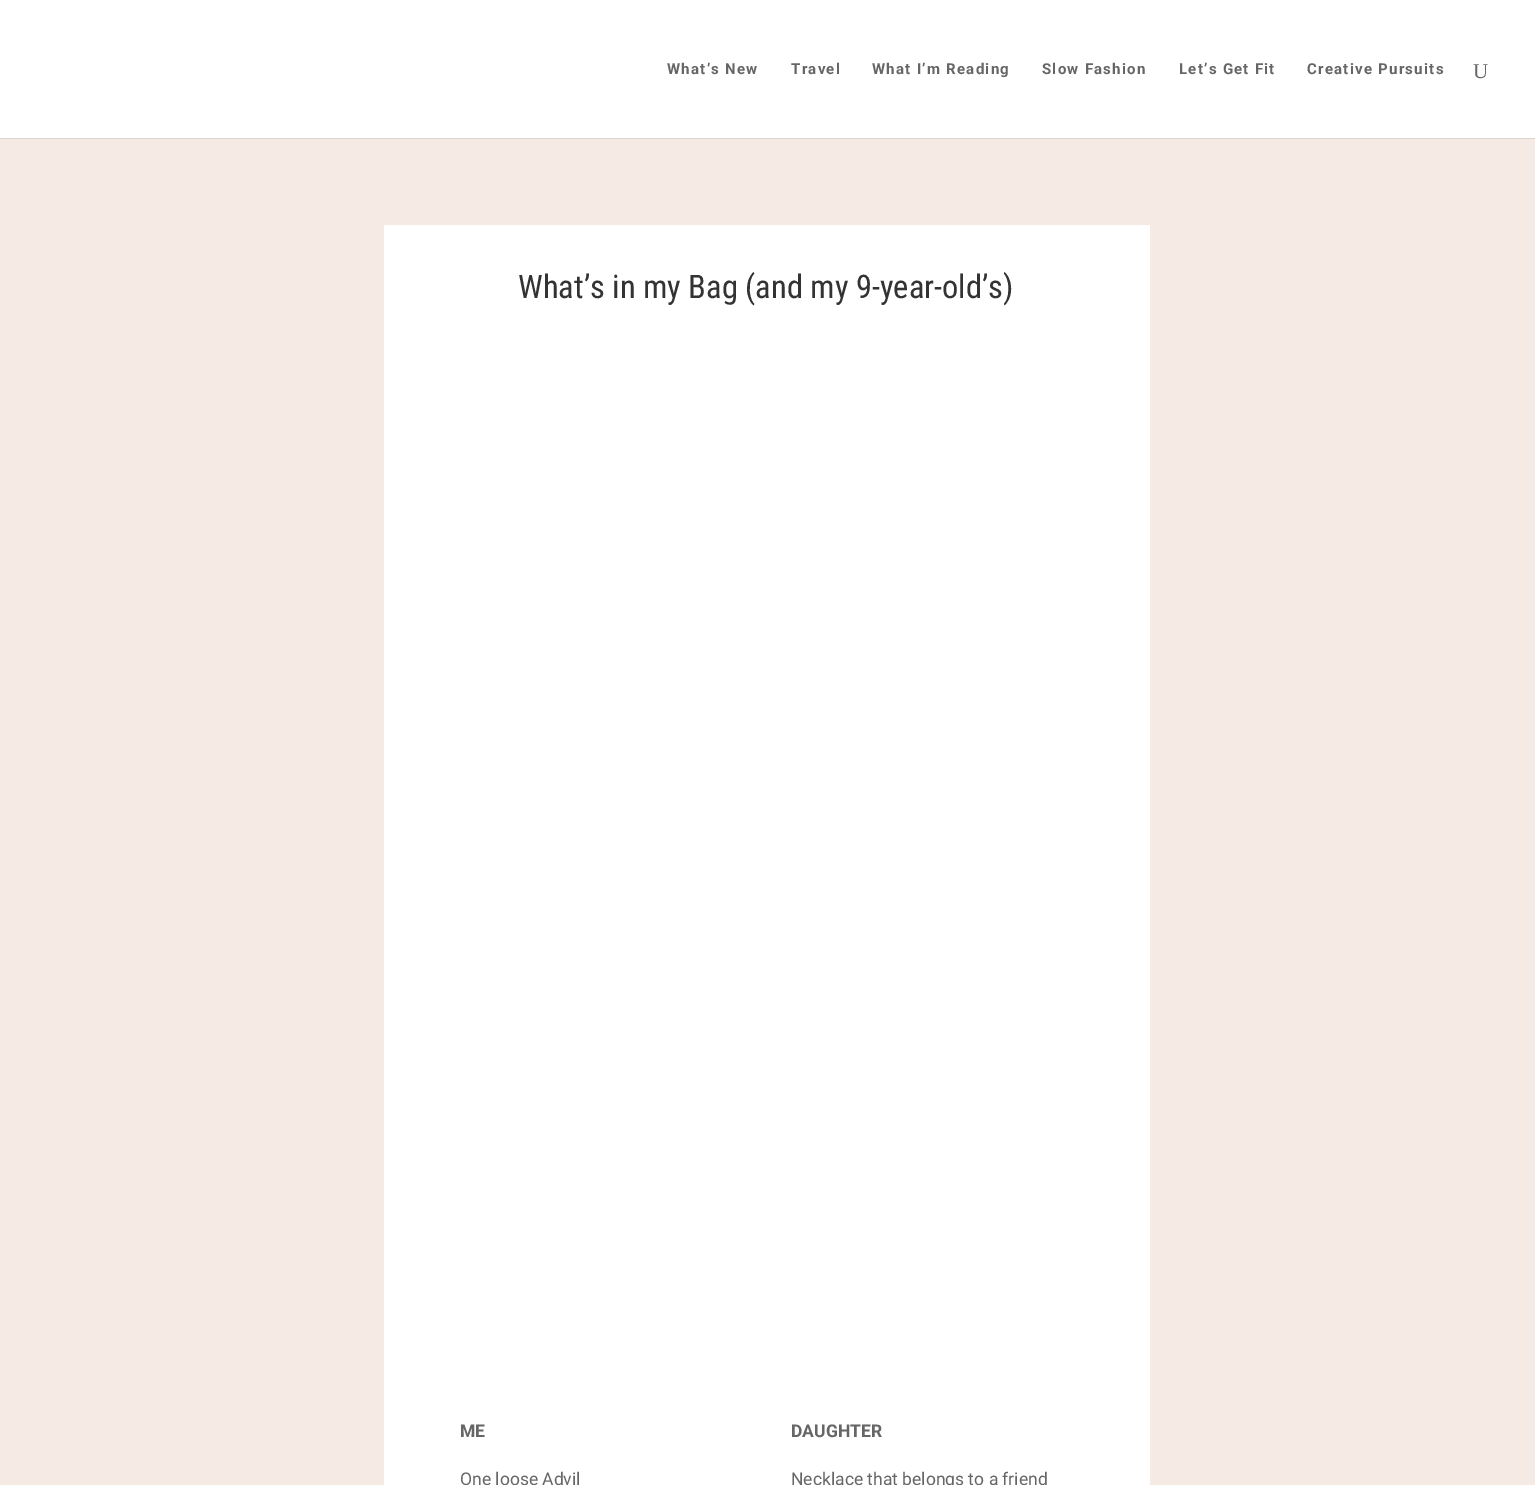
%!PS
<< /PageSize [1535 1485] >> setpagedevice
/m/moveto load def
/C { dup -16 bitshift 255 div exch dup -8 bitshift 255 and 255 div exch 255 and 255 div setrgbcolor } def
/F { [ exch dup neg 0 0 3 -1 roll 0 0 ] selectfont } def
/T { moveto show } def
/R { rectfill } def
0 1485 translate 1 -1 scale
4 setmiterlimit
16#F6EBE4 C
0 0 1535 1485 R
16#DDD4CD C
0 138 1535 1 R
16#FFFFFF C
0 0 1535 138 R
/Roboto-Bold 15 F
16#666666 C
667 74 m 1.25 0 (What’s New) ashow
791 74 m 1.25 0 (Travel) ashow
872 74 m 1.25 0 (What I’m Reading) ashow
1042 74 m 1.25 0 (Slow Fashion) ashow
1179 74 m 1.25 0 (Let’s Get Fit) ashow
1307 74 m 1.25 0 (Creative Pursuits) ashow
/LiberationSerif-Regular 21 F
(U) 1473 78 T
16#FFFFFF C
384 225 766 1260 R
/RobotoCondensed-Regular 32.5 F
16#333333 C
(What’s in my Bag \(and my 9-year-old’s\)) 518 298 T
/Roboto-Bold 17.5 F
16#666666 C
(ME) 460 1437 T
/Roboto-Regular 17.5 F
(One loose Advil) 460 1485 T
/Roboto-Bold 17.5 F
(DAUGHTER) 791 1437 T
/Roboto-Regular 17.5 F
(Necklace that belongs to a friend) 791 1485 T
showpage
